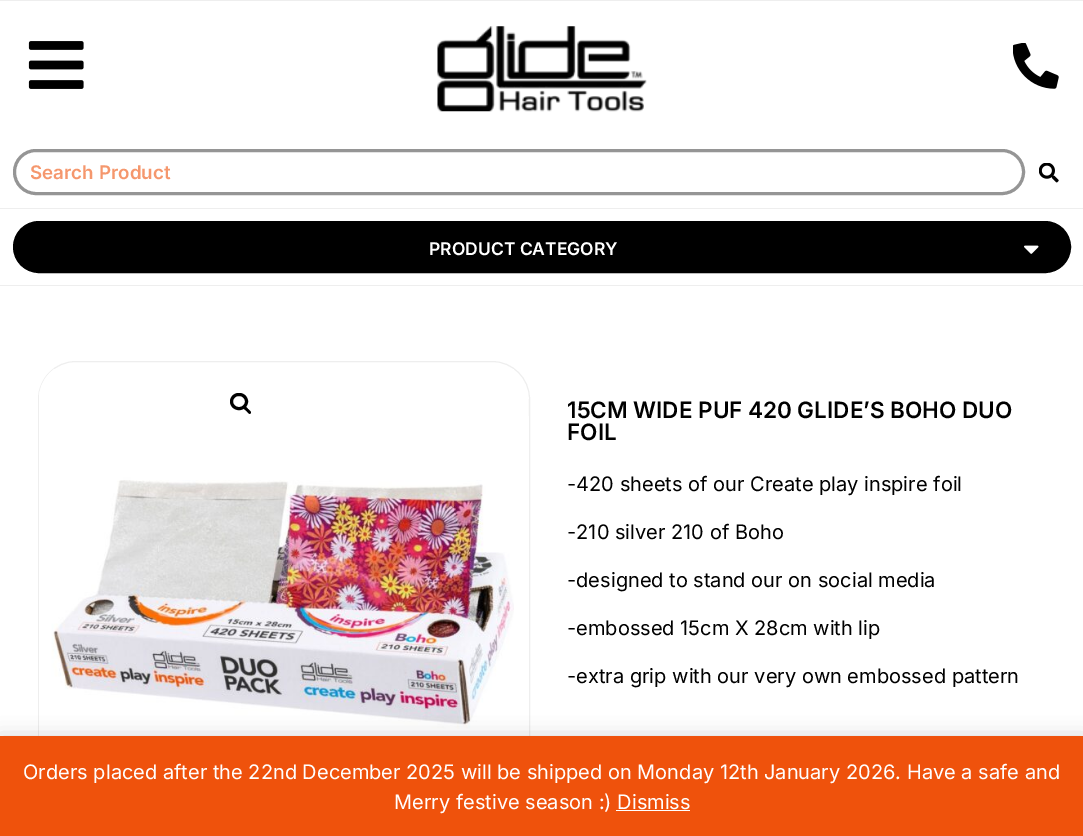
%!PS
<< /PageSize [1083 836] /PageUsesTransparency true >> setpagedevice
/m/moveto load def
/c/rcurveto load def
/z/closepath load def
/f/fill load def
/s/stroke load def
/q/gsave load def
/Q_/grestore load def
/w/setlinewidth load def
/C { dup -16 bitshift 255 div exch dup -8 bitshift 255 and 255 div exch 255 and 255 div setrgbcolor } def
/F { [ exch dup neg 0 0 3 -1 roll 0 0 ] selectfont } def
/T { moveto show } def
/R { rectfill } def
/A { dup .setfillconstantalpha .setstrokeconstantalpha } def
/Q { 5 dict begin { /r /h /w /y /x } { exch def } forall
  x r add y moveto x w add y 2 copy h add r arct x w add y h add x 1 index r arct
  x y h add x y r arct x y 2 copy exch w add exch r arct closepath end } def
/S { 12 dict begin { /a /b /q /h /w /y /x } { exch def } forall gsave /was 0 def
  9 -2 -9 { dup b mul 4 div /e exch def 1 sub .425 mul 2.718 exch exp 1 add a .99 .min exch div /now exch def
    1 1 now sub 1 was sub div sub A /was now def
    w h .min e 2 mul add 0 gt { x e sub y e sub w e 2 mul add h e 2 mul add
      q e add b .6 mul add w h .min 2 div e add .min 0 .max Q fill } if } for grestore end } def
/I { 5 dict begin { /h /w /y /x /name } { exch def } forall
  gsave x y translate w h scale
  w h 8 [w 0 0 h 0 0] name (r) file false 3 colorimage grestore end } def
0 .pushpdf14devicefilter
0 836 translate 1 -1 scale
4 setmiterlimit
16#FFFFFF C
0 0 1083 836 R
16#EEEEEE C
0 0 1083 1 R
(1.rgb) 28 41 56 48 I
(2.rgb) 437 26 210 86 I
(3.rgb) 1013 43 46 46 I
16#959595 C
3 w
14.5 150.5 1009 43 21.5 Q s
/Inter-SemiBold 18.75 F
16#F5976D C
(Search Product) 30 179 T
(4.rgb) 1039 163 20 20 I
16#EEEEEE C
0 208 1083 1 R
0 285 1083 1 R
16#000000 C
14.5 222.5 1055 49 24.5 Q q f Q_
s
/Inter-SemiBold 17.5 F
16#FFFFFF C
(PRODUCT CATEGORY) 429 255 T
(5.rgb) 1024 245 15 9 I
16#EEEEEE C
1 w
38.5 361.5 491 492 37.5 Q s
(6.rgb) 39 369 475 367 I
(7.rgb) 528 399 1 17 I
16#000000 C
3 w
231.5 394.5 15 14 7 Q s
243.5 406.5 m 1.5 -1.5 4 2 4.5 2.5 c 1 1 4 3 2.5 4.5 c -1 1.5 -3.5 -2 -4 -2.5 c -1 -1 -4.5 -3 -3 -4.5 c z f
/Inter-SemiBold 22.5 F
(15CM WIDE PUF 420 GLIDE’S BOHO DUO) 567 418 T
(FOIL) 567 440 T
/Inter-Regular 20 F
(-420 sheets of our Create play inspire foil) 567 491 T
(-210 silver 210 of Boho) 567 539 T
(-designed to stand our on social media) 567 587 T
(-embossed 15cm X 28cm with lip) 567 635 T
(-extra grip with our very own embossed pattern) 567 683 T
0 738 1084 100 0 10 .2 S
16#EF520C C
0 736 1083 100 R
16#FFFFFF C
(Orders placed after the 22nd December 2025 will be shipped on Monday 12th January 2026. Have a safe and) 23 779 T
(Merry festive season :\) Dismiss) 394 809 T
616 810 74 1 R
.poppdf14devicefilter showpage
